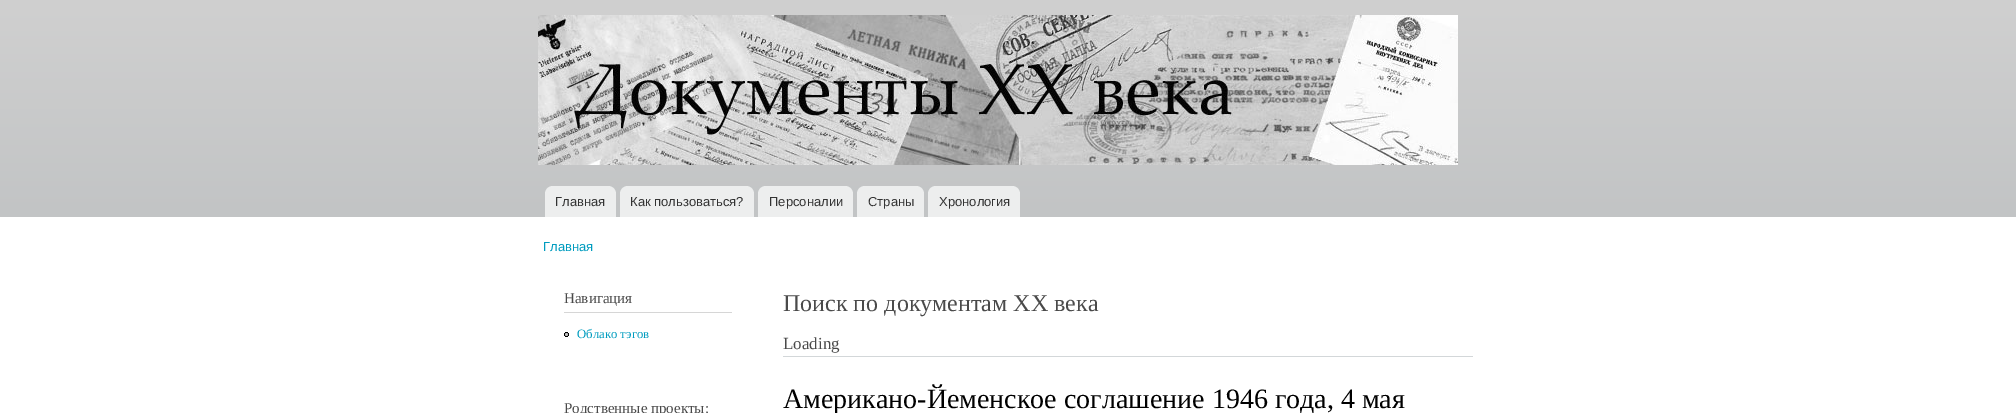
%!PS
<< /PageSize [2016 413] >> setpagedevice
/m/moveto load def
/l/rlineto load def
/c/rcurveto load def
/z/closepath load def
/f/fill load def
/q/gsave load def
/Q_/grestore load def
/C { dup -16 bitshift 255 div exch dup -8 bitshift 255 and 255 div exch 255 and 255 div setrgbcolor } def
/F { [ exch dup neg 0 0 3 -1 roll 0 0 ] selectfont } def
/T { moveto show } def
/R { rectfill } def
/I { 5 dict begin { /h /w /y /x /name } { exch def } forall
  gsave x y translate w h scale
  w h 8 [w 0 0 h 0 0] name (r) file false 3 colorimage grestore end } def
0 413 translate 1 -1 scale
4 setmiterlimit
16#FFFFFF C
0 0 2016 413 R
q 0 0 m 2016 0 l 0 217 l -2016 0 l z clip newpath
<< /ShadingType 2 /ColorSpace /DeviceRGB /Coords [1008 0 1008 217] /Extend [true true] /Function << /FunctionType 2 /Domain [0 1] /C0 [.816 .816 .816] /C1 [.761 .769 .773] /N 1 >> >> shfill Q_
(1.rgb) 538 15 920 150 I
16#EDEEEE C
553 186 m 55 0 l 4.5 0 8 3.5 8 8 c 0 23 l -71 0 l 0 -23 l 0 -4.5 3.5 -8 8 -8 c z f
/LiberationSans-Regular 13 F
16#333333 C
(Главная) 555 206 T
16#EDEEEE C
628 186 m 118 0 l 4.5 0 8 3.5 8 8 c 0 23 l -134 0 l 0 -23 l 0 -4.5 3.5 -8 8 -8 c z f
16#333333 C
(Как пользоваться?) 630 206 T
16#EDEEEE C
766 186 m 79 0 l 4.5 0 8 3.5 8 8 c 0 23 l -95 0 l 0 -23 l 0 -4.5 3.5 -8 8 -8 c z f
16#333333 C
(Персоналии) 769 206 T
16#EDEEEE C
865 186 m 51 0 l 4.5 0 8 3.5 8 8 c 0 23 l -67 0 l 0 -23 l 0 -4.5 3.5 -8 8 -8 c z f
16#333333 C
(Страны) 868 206 T
16#EDEEEE C
936 186 m 76 0 l 4.5 0 8 3.5 8 8 c 0 23 l -92 0 l 0 -23 l 0 -4.5 3.5 -8 8 -8 c z f
16#333333 C
(Хронология) 939 206 T
16#009CBF C
(Главная) 543 251 T
16#D6D6D6 C
564 312 168 1 R
/LiberationSerif-Regular 15 F
16#4A4A4A C
(Навигация) 564 303 T
(2.rgb) 564 332 5 5 I
/LiberationSerif-Regular 12.75 F
16#009CBF C
(Облако тэгов) 577 338 T
/LiberationSerif-Regular 15 F
16#4A4A4A C
(Родственные проекты:) 564 413 T
16#D3D7D9 C
783 356 690 1 R
/LiberationSerif-Regular 24 F
16#4A4A4A C
(Поиск по документам XX века) 783 311 T
/LiberationSerif-Regular 17 F
(Loading) 783 349 T
/LiberationSerif-Regular 28 F
16#000000 C
(Американо-Йеменское соглашение 1946 года, 4 мая) 783 408 T
showpage
